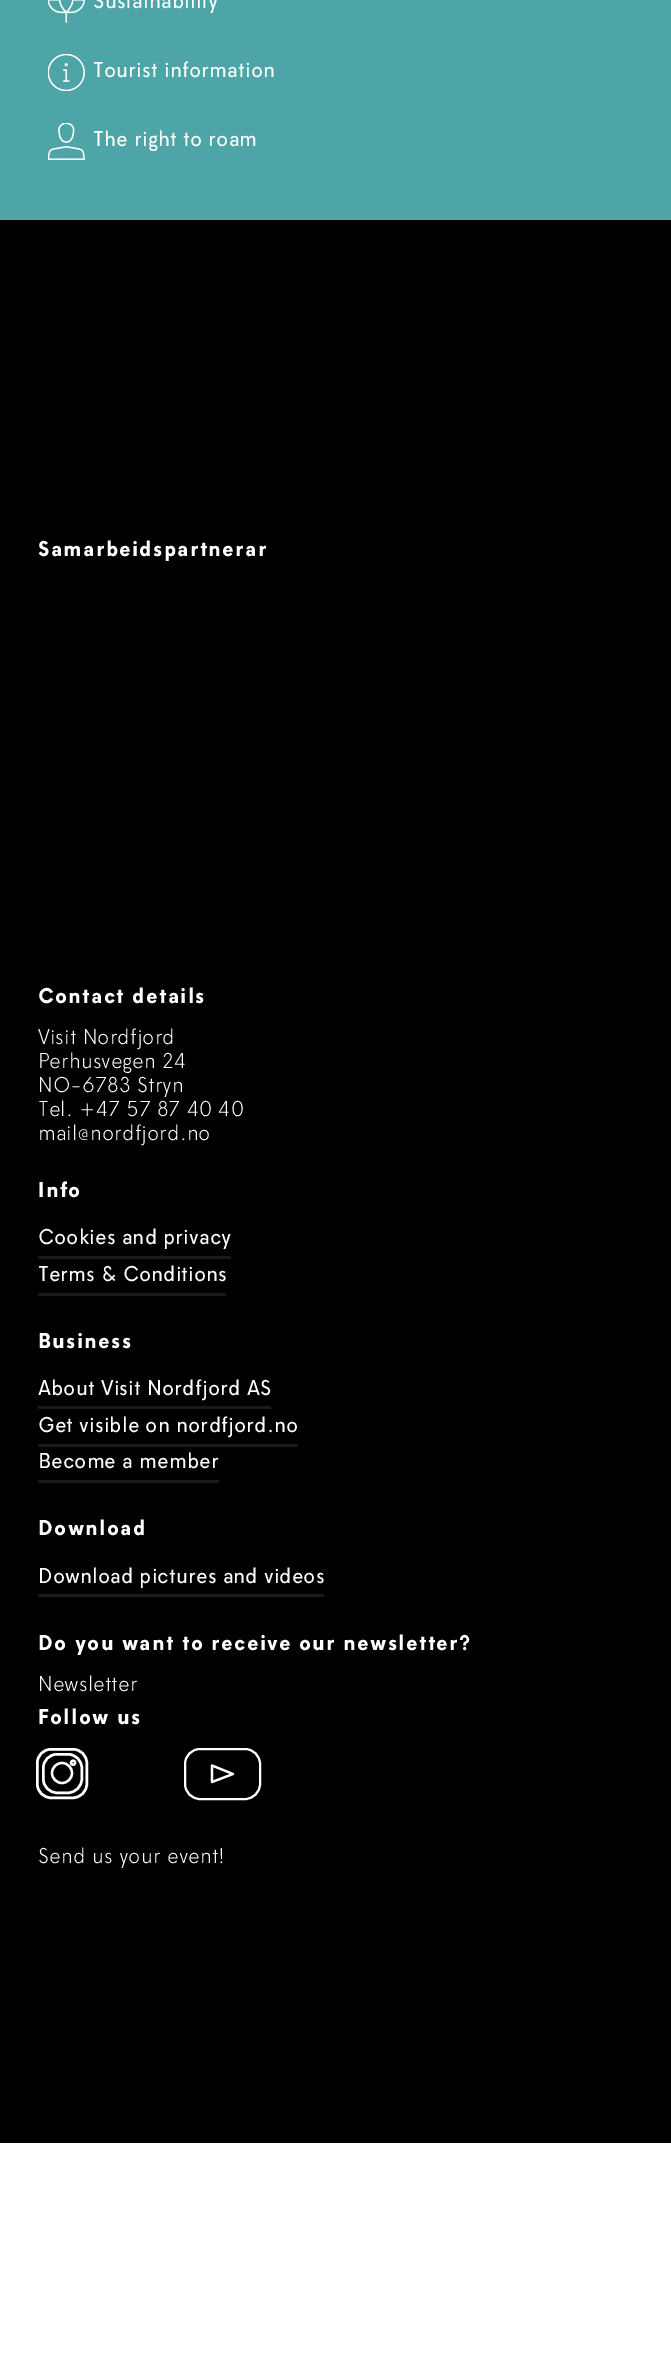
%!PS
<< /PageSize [671 2373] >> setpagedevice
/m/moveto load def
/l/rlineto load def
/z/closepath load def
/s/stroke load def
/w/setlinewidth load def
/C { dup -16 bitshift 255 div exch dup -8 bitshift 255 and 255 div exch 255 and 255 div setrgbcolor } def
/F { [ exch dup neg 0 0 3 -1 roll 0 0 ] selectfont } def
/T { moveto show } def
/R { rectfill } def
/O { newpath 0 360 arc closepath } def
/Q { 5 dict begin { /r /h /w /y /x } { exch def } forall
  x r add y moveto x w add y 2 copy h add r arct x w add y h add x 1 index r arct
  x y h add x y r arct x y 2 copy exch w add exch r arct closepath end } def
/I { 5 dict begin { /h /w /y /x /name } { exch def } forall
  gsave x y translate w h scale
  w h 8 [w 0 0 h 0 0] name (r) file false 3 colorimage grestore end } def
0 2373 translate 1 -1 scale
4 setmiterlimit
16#FFFFFF C
0 0 671 2373 R
16#4DA5A7 C
0 0 671 220 R
(1.rgb) 48 0 37 23 I
/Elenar-Regular 20 F
16#FFFFFF C
(Sustainability) 93 8 T
(2.rgb) 48 54 37 37 I
(Tourist information) 93 77 T
(3.rgb) 48 123 37 37 I
(The right to roam) 93 146 T
16#000000 C
0 220 671 1923 R
/Elenar-Bold 20 F
16#FFFFFF C
38 556 m 1.25 0 (Samarbeidspartnerar) ashow
38 1003 m 1.25 0 (Contact details) ashow
/Elenar-Light 20 F
(Visit Nordfjord) 38 1044 T
(Perhusvegen 24) 38 1068 T
(NO-6783 Stryn) 38 1092 T
(Tel. +47 57 87 40 40) 38 1116 T
(mail@nordfjord.no) 38 1140 T
/Elenar-Bold 20 F
38 1197 m 1.25 0 (Info) ashow
/Elenar-Regular 20 F
(Cookies and privacy) 38 1244 T
16#1A1A1A C
38 1256 193 3 R
16#FFFFFF C
(Terms & Conditions) 38 1281 T
16#1A1A1A C
38 1293 188 3 R
/Elenar-Bold 20 F
16#FFFFFF C
38 1348 m 1.25 0 (Business) ashow
/Elenar-Regular 20 F
(About Visit Nordfjord AS) 38 1395 T
16#1A1A1A C
38 1406 233 3 R
16#FFFFFF C
(Get visible on nordfjord.no) 38 1432 T
16#1A1A1A C
38 1444 260 3 R
16#FFFFFF C
(Become a member) 38 1468 T
16#1A1A1A C
38 1480 181 3 R
/Elenar-Bold 20 F
16#FFFFFF C
38 1535 m 1.25 0 (Download) ashow
/Elenar-Regular 20 F
(Download pictures and videos) 38 1583 T
16#1A1A1A C
38 1594 286 3 R
/Elenar-Bold 20 F
16#FFFFFF C
38 1650 m 1.25 0 (Do you want to receive our newsletter?) ashow
/Elenar-Light 20 F
(Newsletter) 38 1691 T
/Elenar-Bold 20 F
38 1724 m 1.25 0 (Follow us) ashow
2.5 w
37.25 1749.25 49.5 48.5 13.75 Q s
43.25 1754.25 38.5 38.5 13.75 Q s
2.3 w
62 1773 10 O s
73.1 1762.7 2 O s
2 w
185 1749 75 50 15 Q s
2.2 w
1 setlinecap
1 setlinejoin
212 1782 m 0 -16.5 l 21 8.5 l z s
/Elenar-Light 20 F
(Send us your event!) 38 1863 T
showpage
